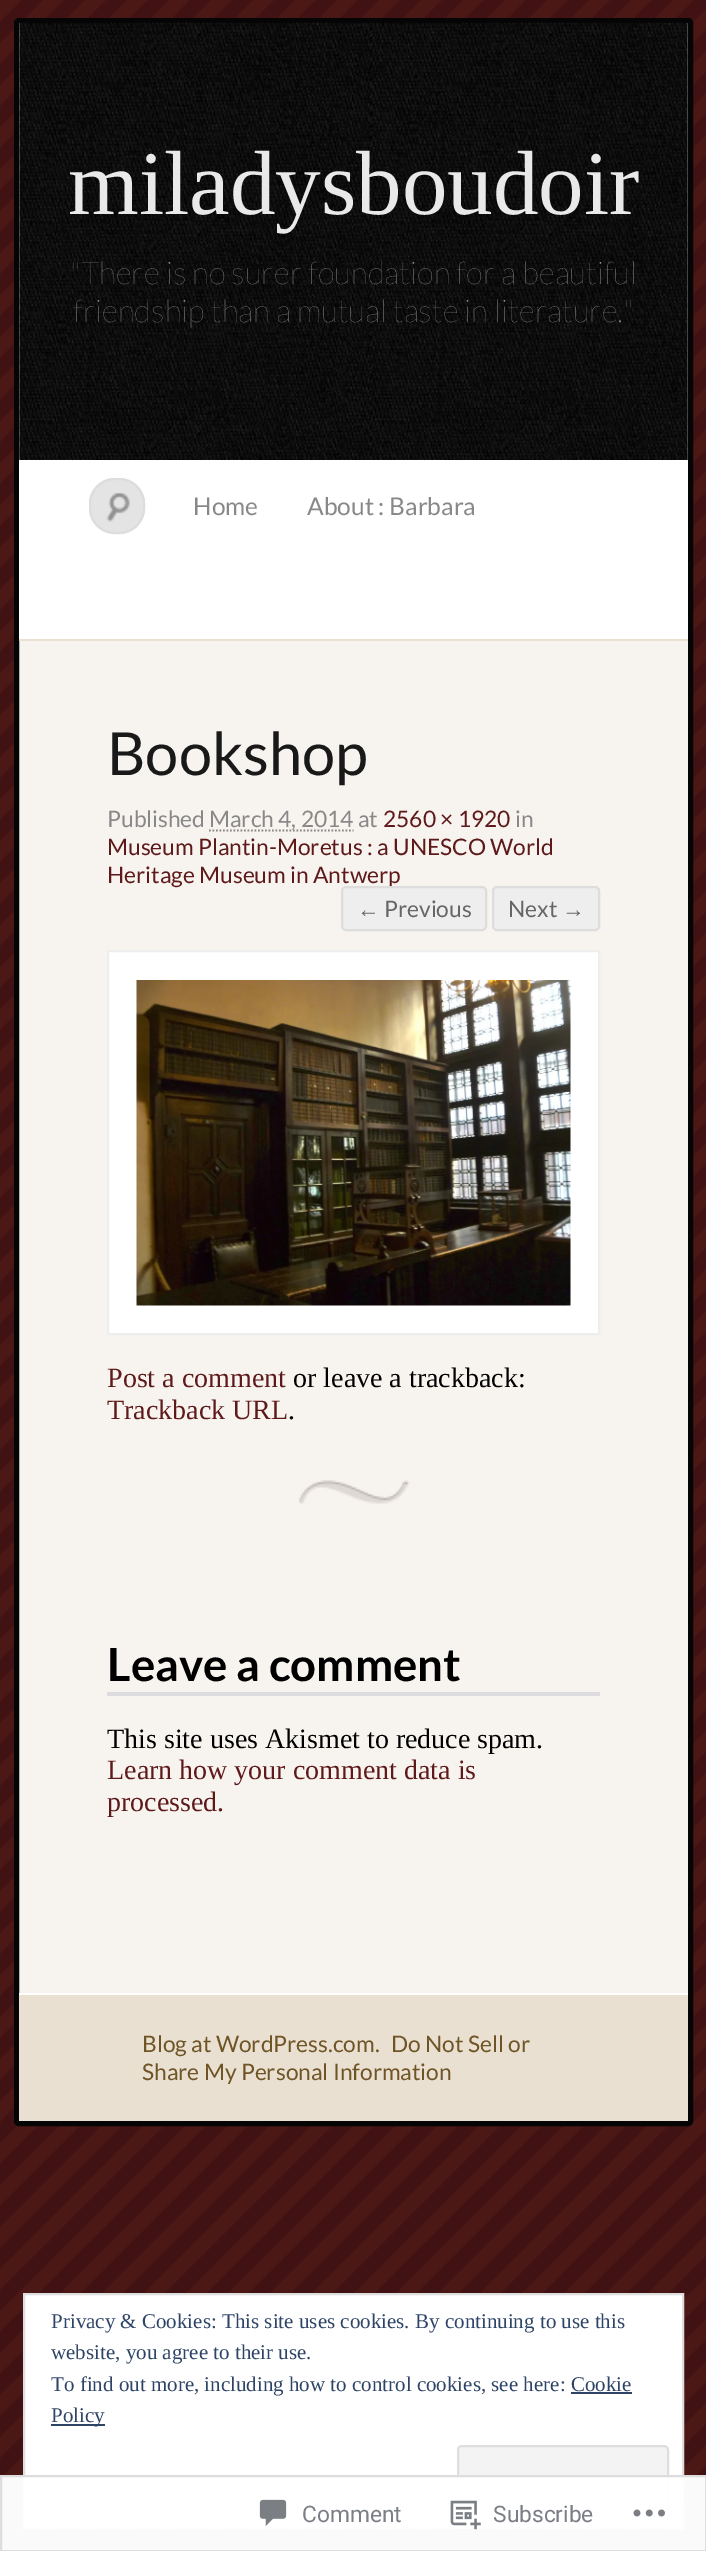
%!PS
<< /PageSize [706 2551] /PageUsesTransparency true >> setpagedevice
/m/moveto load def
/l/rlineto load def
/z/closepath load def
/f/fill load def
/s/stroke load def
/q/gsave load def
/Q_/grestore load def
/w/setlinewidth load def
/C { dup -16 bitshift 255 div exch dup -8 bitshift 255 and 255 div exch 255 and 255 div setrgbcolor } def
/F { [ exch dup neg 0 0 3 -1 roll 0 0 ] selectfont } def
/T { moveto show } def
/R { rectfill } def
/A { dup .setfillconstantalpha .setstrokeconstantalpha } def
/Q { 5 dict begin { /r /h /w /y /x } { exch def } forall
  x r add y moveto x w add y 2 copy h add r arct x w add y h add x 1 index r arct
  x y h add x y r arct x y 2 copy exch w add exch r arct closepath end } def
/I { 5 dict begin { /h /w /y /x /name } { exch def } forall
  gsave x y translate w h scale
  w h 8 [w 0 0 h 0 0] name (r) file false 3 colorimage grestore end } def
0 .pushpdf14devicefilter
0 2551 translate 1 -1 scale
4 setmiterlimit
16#FFFFFF C
0 0 706 2551 R
(1.rgb) 0 0 706 2551 I
16#F7F3EE C
16.5 20.5 674 2103 2.5 Q q f Q_
16#050505 C
5 w
s
(2.rgb) 19 22 669 438 I
/LiberationSerif-Regular 91 F
16#E9E9E9 C
(miladysboudoir) 68 214 T
/Lato-Thin 31.5 F
16#8F8F8F C
("There is no surer foundation for a beautiful) 70 284 T
(friendship than a mutual taste in literature.") 73 322 T
16#FFFFFF C
19 460 669 179 R
16#E9E0D1 C
19 639 669 2 R
16#E4E4E4 C
89 478 56 56 26 Q f
(3.rgb) 106 492 24 30 I
16#DDDDDD C
2 w
90 479 54 54 25 Q s
/Lato-Regular 24.5 F
16#888888 C
(Home) 193 515 T
(About : Barbara) 307 515 T
(4.rgb) 299 1480 111 24 I
/Lato-Regular 59.5 F
16#191919 C
(Bookshop) 107 775 T
/Lato-Regular 22.75 F
16#888888 C
(Published) 107 827 T
1.8 w
[1.75 1.75] 0 setdash
209 830.5 m 144.5 0 l s
(March 4, 2014 at) 209 827 T
16#5E191A C
(2560 × 1920) 383 827 T
16#888888 C
(in) 515 827 T
16#5E191A C
(Museum Plantin-Moretus : a UNESCO World) 107 855 T
(Heritage Museum in Antwerp) 107 883 T
16#EEEEEE C
342 887 144 43 4 Q q f Q_
16#DDDDDD C
2 w
[] 0 setdash
s
/LiberationSans-Regular 22.75 F
16#666666 C
(←) 357 917 T
/Lato-Regular 22.75 F
(Previous) 384 917 T
16#EEEEEE C
493 887 106 43 4 Q q f Q_
16#DDDDDD C
s
16#666666 C
(Next) 508 917 T
/LiberationSans-Regular 22.75 F
(→) 562 917 T
16#FFFFFF C
108 951 m 491 0 l 0 383 l -491 0 l z q f Q_
16#EEEEEE C
s
(5.rgb) 136 980 435 326 I
/LiberationSerif-Regular 28 F
16#5E191A C
(Post a comment) 107 1387 T
16#000000 C
(or leave a trackback:) 293 1387 T
16#5E191A C
(Trackback URL) 107 1419 T
16#000000 C
(.) 288 1419 T
/Lato-Bold 45.5 F
(Leave a comment) 107 1681 T
16#DCDCDE C
107 1692 493 4 R
/LiberationSerif-Regular 28 F
16#000000 C
(This site uses Akismet to reduce spam.) 107 1748 T
16#5E191A C
(Learn how your comment data is) 107 1779 T
(processed.) 107 1811 T
16#E9E0D1 C
19 1995 669 126 R
16#FFFFFF C
19 1993 669 2 R
/Lato-Regular 22.75 F
16#6F5426 C
(Blog at WordPress.com.) 142 2052 T
(Do Not Sell or) 391 2052 T
(Share My Personal Information) 142 2080 T
16#FFFFFF C
24 2294 m 659 0 l 0 234 l -659 0 l z q f Q_
16#DEDEDE C
s
/LiberationSerif-Regular 21 F
16#2E4467 C
(Privacy & Cookies: This site uses cookies. By continuing to use this) 51 2328 T
(website, you agree to their use.) 51 2359 T
(To find out more, including how to control cookies, see here: Cookie) 51 2391 T
51 2424 54 2 R
(Policy) 51 2422 T
571 2392 61 2 R
16#F3F3F3 C
458 2446 210 66 4 Q q f Q_
16#DEDEDE C
s
0.98 A
16#FFFFFF C
0 2475 706 76 R
16#DCDCDE C
1 2476 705 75 rectstroke
1 A
(6.rgb) 259 2499 28 27 I
/Roboto-Regular 22.75 F
16#7B7F85 C
(Comment) 302 2522 T
(7.rgb) 450 2500 31 30 I
(Subscribe) 493 2522 T
(8.rgb) 633 2509 32 8 I
.poppdf14devicefilter showpage
